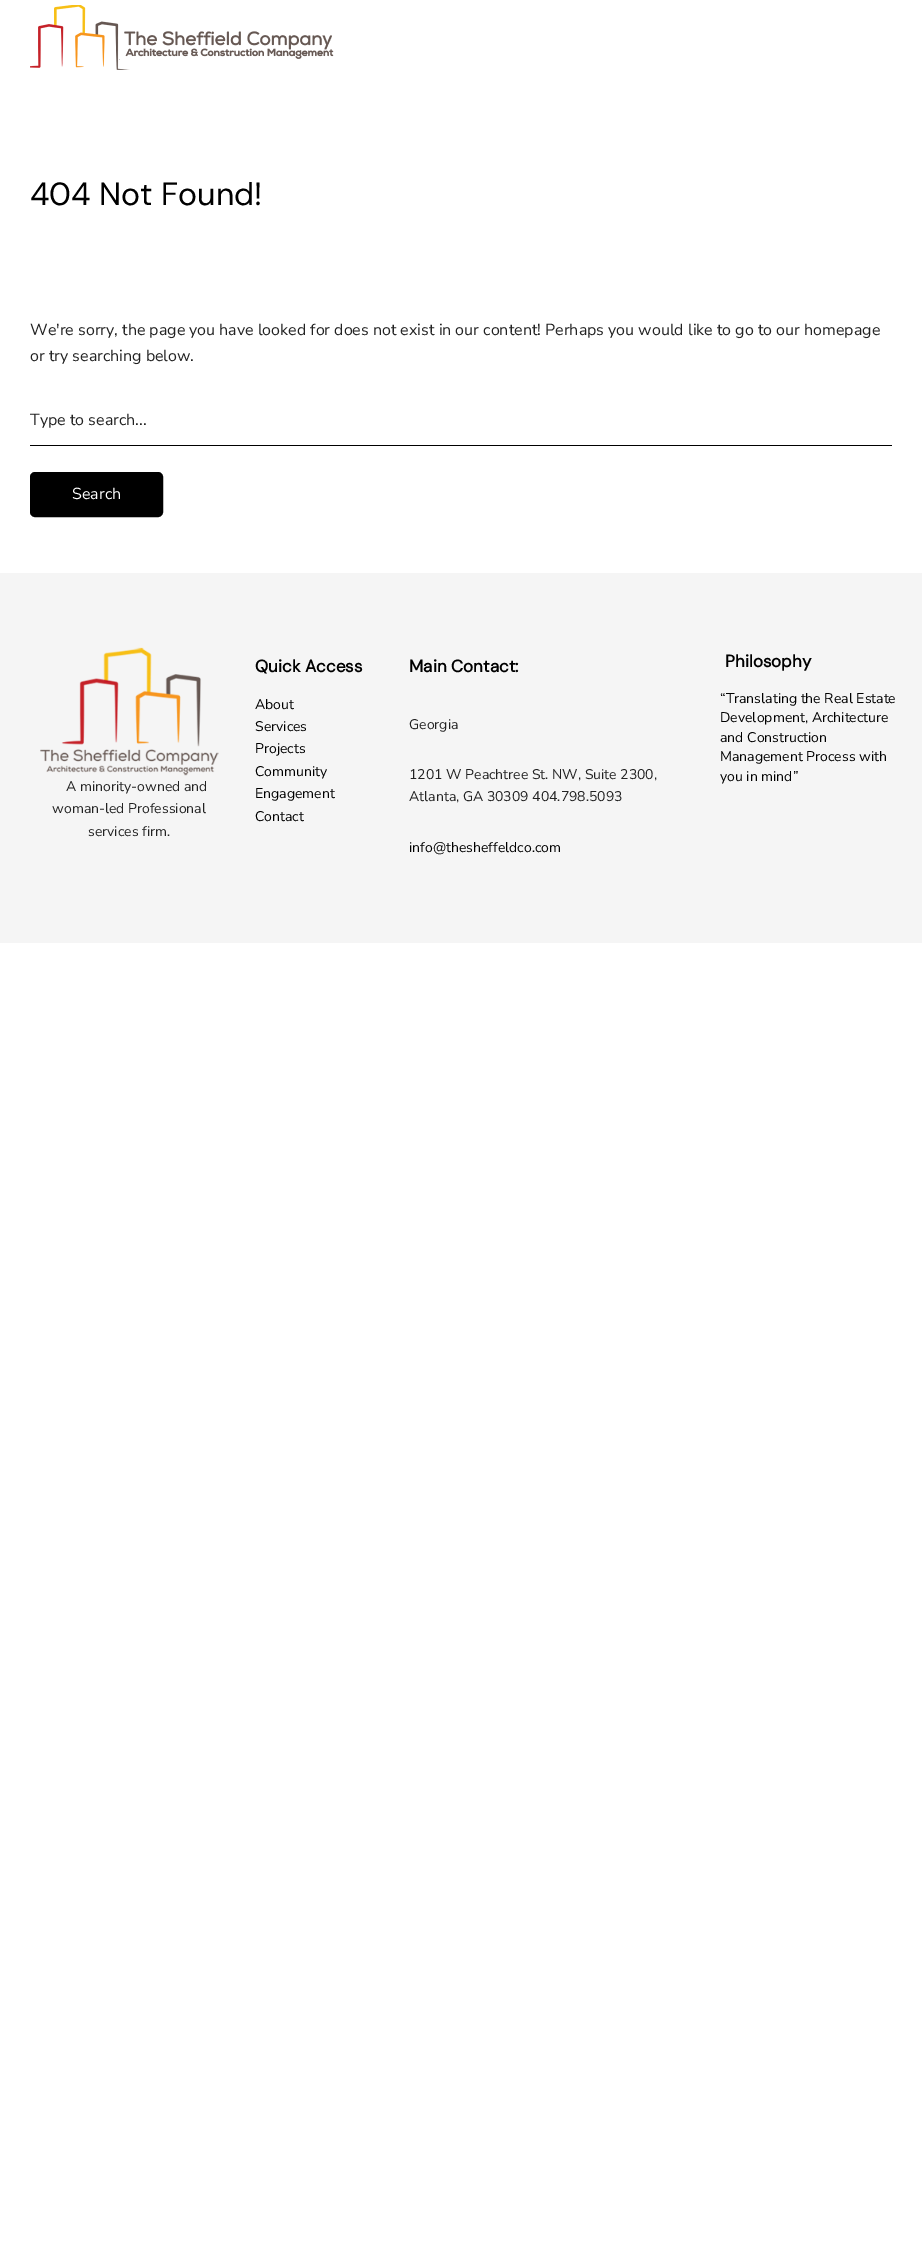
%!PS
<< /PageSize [922 2245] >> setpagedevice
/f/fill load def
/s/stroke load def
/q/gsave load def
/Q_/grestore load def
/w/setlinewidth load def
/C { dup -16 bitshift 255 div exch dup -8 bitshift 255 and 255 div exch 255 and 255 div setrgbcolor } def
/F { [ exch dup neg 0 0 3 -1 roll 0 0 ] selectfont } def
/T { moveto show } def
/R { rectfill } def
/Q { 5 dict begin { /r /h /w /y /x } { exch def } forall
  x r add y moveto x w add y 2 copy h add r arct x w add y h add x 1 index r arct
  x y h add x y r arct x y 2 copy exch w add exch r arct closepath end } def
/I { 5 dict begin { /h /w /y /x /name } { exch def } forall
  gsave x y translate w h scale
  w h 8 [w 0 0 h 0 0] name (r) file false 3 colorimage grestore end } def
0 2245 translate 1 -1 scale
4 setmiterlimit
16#FFFFFF C
0 0 922 2245 R
(1.rgb) 30 5 304 65 I
/DMSans-Regular 32 F
16#000000 C
(404 Not Found!) 30 205 T
/NunitoSans-ExtraLight 16 F
16#222222 C
(We're sorry, the page you have looked for does not exist in our content! Perhaps you would like to go to our homepage) 30 335 T
(or try searching below.) 30 361 T
16#000000 C
30 445 862 1 R
16#222222 C
(Type to search...) 30 425 T
16#000000 C
31 473 131 43 4 Q q f Q_
2 w
s
16#FFFFFF C
(Search) 72 499 T
16#F5F5F5 C
0 573 922 370 R
(2.rgb) 40 647 179 129 I
/NunitoSans-ExtraLight 14 F
16#222222 C
(A minority-owned and) 66 791 T
(woman-led Professional) 52 813 T
(services firm.) 88 836 T
/DMSans-Bold 17 F
16#000000 C
(Quick Access) 255 672 T
/NunitoSans-ExtraLight 14 F
(About) 255 709 T
(Services) 255 731 T
(Projects) 255 753 T
(Community) 255 776 T
(Engagement) 255 798 T
(Contact) 255 821 T
/DMSans-Bold 17 F
(Main Contact:) 409 672 T
/NunitoSans-ExtraLight 14 F
16#222222 C
(Georgia) 409 729 T
(1201 W Peachtree St. NW, Suite 2300,) 409 779 T
(Atlanta, GA 30309 404.798.5093) 409 801 T
16#000000 C
(info@thesheffeldco.com) 409 852 T
/DMSans-Bold 17 F
(Philosophy) 725 667 T
/NunitoSans-ExtraLight 14 F
(“Translating the Real Estate) 720 703 T
(Development, Architecture) 720 722 T
(and Construction) 720 742 T
(Management Process with) 720 761 T
(you in mind”) 720 781 T
showpage
